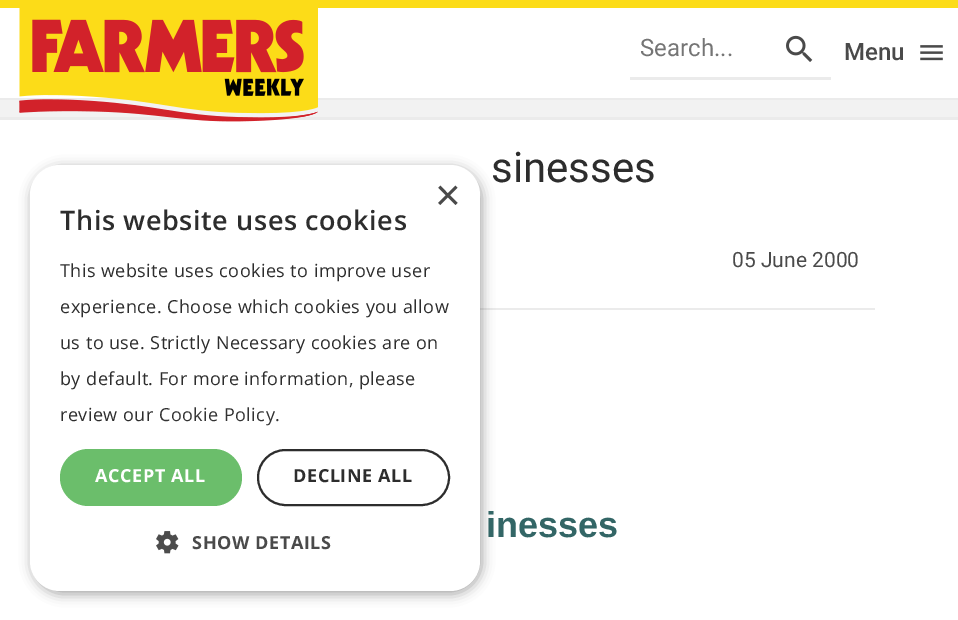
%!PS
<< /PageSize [958 620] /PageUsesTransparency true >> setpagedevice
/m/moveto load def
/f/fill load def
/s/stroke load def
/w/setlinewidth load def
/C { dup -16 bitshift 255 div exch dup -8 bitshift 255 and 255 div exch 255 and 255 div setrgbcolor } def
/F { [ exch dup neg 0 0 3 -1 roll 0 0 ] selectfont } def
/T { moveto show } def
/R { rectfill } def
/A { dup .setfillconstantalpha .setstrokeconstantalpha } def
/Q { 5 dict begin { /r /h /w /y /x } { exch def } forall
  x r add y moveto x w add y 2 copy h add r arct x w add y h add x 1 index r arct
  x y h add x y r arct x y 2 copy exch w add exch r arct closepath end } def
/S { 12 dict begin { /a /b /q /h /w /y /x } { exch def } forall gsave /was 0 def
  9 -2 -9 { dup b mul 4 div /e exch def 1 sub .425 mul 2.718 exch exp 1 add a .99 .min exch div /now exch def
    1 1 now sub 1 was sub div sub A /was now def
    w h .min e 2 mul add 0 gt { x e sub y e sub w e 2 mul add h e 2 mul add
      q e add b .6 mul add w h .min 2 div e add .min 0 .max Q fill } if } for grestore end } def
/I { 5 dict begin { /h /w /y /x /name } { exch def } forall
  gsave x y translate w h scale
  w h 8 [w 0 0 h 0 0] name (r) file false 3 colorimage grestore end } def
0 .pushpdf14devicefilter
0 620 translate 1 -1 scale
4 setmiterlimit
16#FFFFFF C
0 0 958 620 R
16#EBEBEB C
480 308 395 2 R
16#000000 C
32 168 450 426 30 6 .35 S
16#FFFFFF C
30 165 450 426 30 Q f
/LiberationSans-Regular 44 F
16#4A4A4A C
(×) 435 210 T
/OpenSans-SemiBold 27 F
16#2D2D2D C
60 230 m .6 0 (This website uses cookies) ashow
/OpenSans-Regular 18 F
60 277 m .45 0 (This website uses cookies to improve user) ashow
60 313 m .45 0 (experience. Choose which cookies you allow) ashow
60 349 m .45 0 (us to use. Strictly Necessary cookies are on) ashow
60 385 m .45 0 (by default. For more information, please) ashow
60 421 m .45 0 (review our) ashow
16#333333 C
159 421 m .45 0 (Cookie Policy.) ashow
16#6BBE6B C
60 449 182 57 28.5 Q f
/OpenSans-Bold 18 F
16#FFFFFF C
95 482 m .6 0 (ACCEPT ALL) ashow
16#2D2D2D C
2 w
258 450 191 55 27.5 Q s
293 482 m .6 0 (DECLINE ALL) ashow
(1.rgb) 156 531 23 23 I
16#4A4A4A C
192 549 m .6 0 (SHOW DETAILS) ashow
16#FCDC18 C
0 0 958 8 R
16#F2F2F2 C
0 100 958 17 R
16#EBEBEB C
0 98 958 2 R
0 117 958 3 R
(2.rgb) 19 8 299 114 I
630 77 201 3 R
/Roboto-Regular 24 F
16#757575 C
(Search...) 640 56 T
(3.rgb) 786 35 27 27 I
/Roboto-Medium 24 F
16#4A4A4A C
(Menu) 844 60 T
(4.rgb) 920 45 23 16 I
/Roboto-Regular 42 F
16#2D2D2D C
(sinesses) 491 182 T
/Roboto-Regular 21 F
16#4A4A4A C
(05 June 2000) 732 267 T
/LiberationSans-Bold 36 F
16#336666 C
(inesses) 486 537 T
.poppdf14devicefilter showpage
